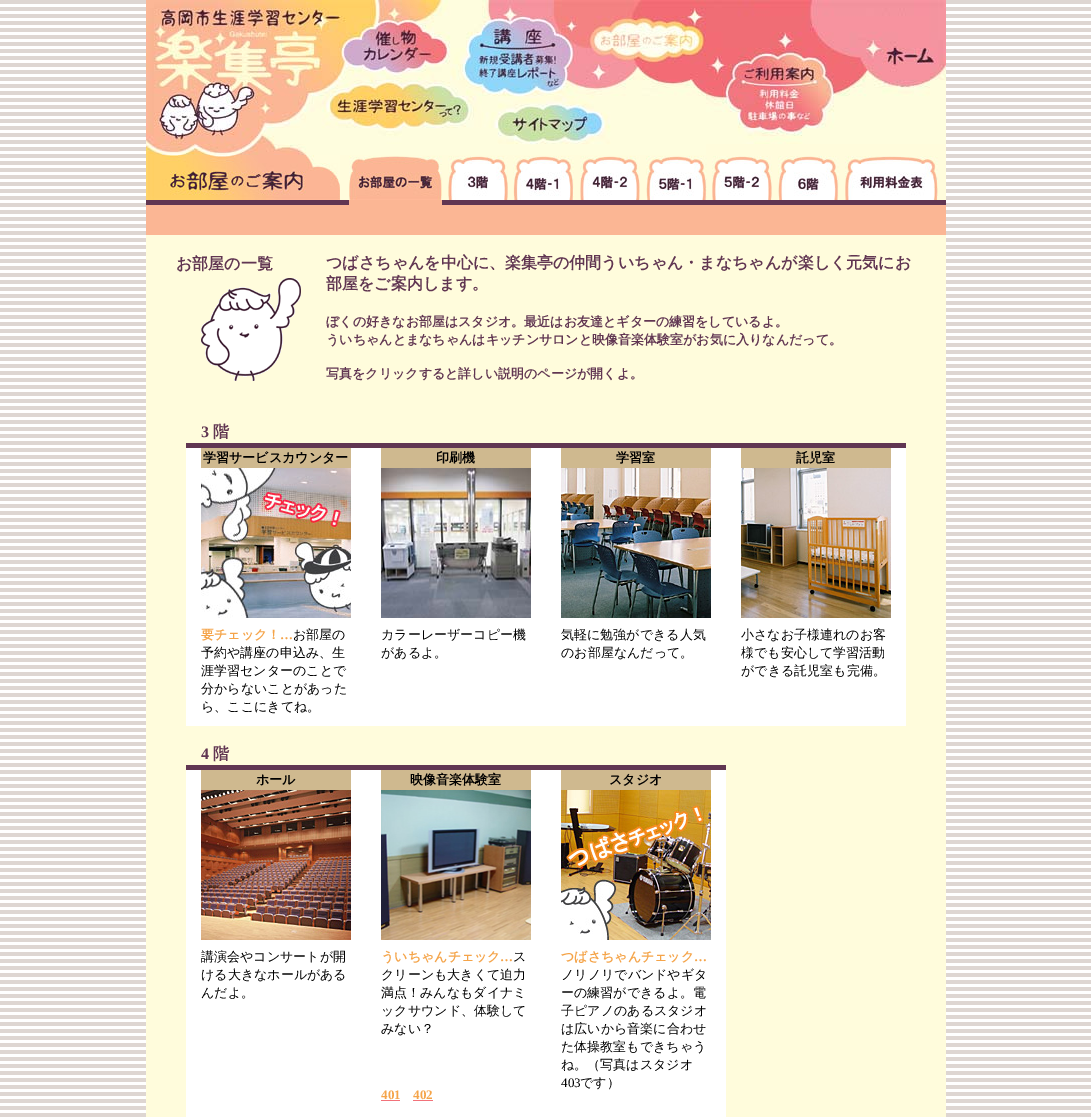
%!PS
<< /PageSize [1091 1117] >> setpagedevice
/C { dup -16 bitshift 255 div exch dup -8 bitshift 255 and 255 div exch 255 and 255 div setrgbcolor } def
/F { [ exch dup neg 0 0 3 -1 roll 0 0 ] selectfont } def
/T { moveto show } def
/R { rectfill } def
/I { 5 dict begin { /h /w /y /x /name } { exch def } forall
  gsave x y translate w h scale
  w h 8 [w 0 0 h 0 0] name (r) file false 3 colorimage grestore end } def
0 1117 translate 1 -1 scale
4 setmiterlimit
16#FFFFFF C
0 0 1091 1117 R
(1.rgb) 0 0 1091 1117 I
(2.rgb) 146 0 560 155 I
16#FFFCDC C
706 144 240 11 R
(3.rgb) 706 0 240 144 I
(4.rgb) 146 155 194 45 I
340 155 9 45 R
349 155 93 1 R
(5.rgb) 349 156 93 44 I
442 155 6 45 R
448 155 60 1 R
(6.rgb) 448 156 60 44 I
508 155 5 45 R
513 155 61 1 R
(7.rgb) 513 156 61 44 I
574 155 6 45 R
580 155 60 1 R
(8.rgb) 580 156 60 44 I
640 155 6 45 R
646 155 61 1 R
(9.rgb) 646 156 61 44 I
707 155 5 45 R
712 155 60 1 R
(10.rgb) 712 156 60 44 I
772 155 6 45 R
778 155 61 1 R
(11.rgb) 778 156 61 44 I
839 155 6 45 R
845 155 93 1 R
(12.rgb) 845 156 93 44 I
938 155 8 45 R
16#613652 C
146 200 203 5 R
16#FBB694 C
349 200 93 5 R
16#613652 C
442 200 504 5 R
16#FBB694 C
146 205 800 30 R
16#FFFCDC C
146 235 800 882 R
/WenQuanYiZenHei-Bold 16 F
16#613652 C
(お部屋の一覧) 176 269 T
(つばさちゃんを中心に、楽集亭の仲間ういちゃん・まなちゃんが楽しく元気にお) 326 268 T
(部屋をご案内します。) 326 289 T
/WenQuanYiZenHei-Bold 13 F
(ぼくの好きなお部屋はスタジオ。最近はお友達とギターの練習をしているよ。) 326 326 T
(ういちゃんとまなちゃんはキッチンサロンと映像音楽体験室がお気に入りなんだって。) 326 344 T
(写真をクリックすると詳しい説明のページが開くよ。) 326 378 T
(13.rgb) 201 278 100 103 I
/LiberationSerif-Bold 16 F
(3) 201 437 T
/WenQuanYiZenHei-Bold 16 F
(階) 213 437 T
186 443 720 5 R
16#FFFFFF C
186 448 15 278 R
16#CFB98F C
201 448 150 20 R
/WenQuanYiZenHei-Bold 13 F
16#000000 C
(学習サービスカウンター) 203 462 T
16#FFFFFF C
351 448 30 20 R
16#CFB98F C
381 448 150 20 R
16#000000 C
(印刷機) 436 462 T
16#FFFFFF C
531 448 30 20 R
16#CFB98F C
561 448 150 20 R
16#000000 C
(学習室) 616 462 T
16#FFFFFF C
711 448 30 20 R
16#CFB98F C
741 448 150 20 R
16#000000 C
(託児室) 796 462 T
16#FFFFFF C
891 448 15 170 R
(14.rgb) 201 468 150 150 I
351 468 30 150 R
(15.rgb) 381 468 150 150 I
531 468 30 150 R
(16.rgb) 561 468 150 150 I
711 468 30 150 R
(17.rgb) 741 468 150 150 I
201 618 705 8 R
201 626 705 90 R
16#F5A449 C
(要チェック！) 201 639 T
/LiberationSerif-Bold 13 F
(…) 280 639 T
/WenQuanYiZenHei-Medium 13 F
16#000000 C
(お部屋の) 293 639 T
(予約や講座の申込み、生) 201 657 T
(涯学習センターのことで) 201 675 T
(分からないことがあった) 201 693 T
(ら、ここにきてね。) 201 711 T
(カラーレーザーコピー機) 381 639 T
(があるよ。) 381 657 T
(気軽に勉強ができる人気) 561 639 T
(のお部屋なんだって。) 561 657 T
(小さなお子様連れのお客) 741 639 T
(様でも安心して学習活動) 741 657 T
(ができる託児室も完備。) 741 675 T
16#FFFFFF C
201 716 705 10 R
/LiberationSerif-Bold 16 F
16#613652 C
(4) 201 759 T
/WenQuanYiZenHei-Bold 16 F
(階) 213 759 T
186 765 540 5 R
16#FFFFFF C
186 770 15 347 R
16#CFB98F C
201 770 150 20 R
/WenQuanYiZenHei-Bold 13 F
16#000000 C
(ホール) 256 784 T
16#FFFFFF C
351 770 30 20 R
16#CFB98F C
381 770 150 20 R
16#000000 C
(映像音楽体験室) 410 784 T
16#FFFFFF C
531 770 30 20 R
16#CFB98F C
561 770 150 20 R
16#000000 C
(スタジオ) 609 784 T
16#FFFFFF C
711 770 15 170 R
(18.rgb) 201 790 150 150 I
351 790 30 150 R
(19.rgb) 381 790 150 150 I
531 790 30 150 R
(20.rgb) 561 790 150 150 I
201 940 525 8 R
201 948 525 169 R
/WenQuanYiZenHei-Medium 13 F
16#000000 C
(講演会やコンサートが開) 201 961 T
(ける大きなホールがある) 201 979 T
(んだよ。) 201 997 T
/WenQuanYiZenHei-Bold 13 F
16#F5A449 C
(ういちゃんチェック) 381 961 T
/LiberationSerif-Bold 13 F
(…) 500 961 T
/WenQuanYiZenHei-Medium 13 F
16#000000 C
(ス) 513 961 T
(クリーンも大きくて迫力) 381 979 T
(満点！みんなもダイナミ) 381 997 T
(ックサウンド、体験して) 381 1015 T
(みない？) 381 1033 T
/LiberationSerif-Bold 13 F
16#F5A449 C
(401) 381 1099 T
16#F2727A C
381 1100 19 1 R
16#F5A449 C
(402) 413 1099 T
16#F2727A C
413 1100 20 1 R
/WenQuanYiZenHei-Bold 13 F
16#F5A449 C
(つばさちゃんチェック) 561 961 T
/LiberationSerif-Bold 13 F
(…) 694 961 T
/WenQuanYiZenHei-Medium 13 F
16#000000 C
(ノリノリでバンドやギタ) 561 979 T
(ーの練習ができるよ。電) 561 997 T
(子ピアノのあるスタジオ) 561 1015 T
(は広いから音楽に合わせ) 561 1033 T
(た体操教室もできちゃう) 561 1051 T
(ね。（写真はスタジオ) 561 1069 T
/LiberationSerif-Regular 13 F
(403) 561 1087 T
/WenQuanYiZenHei-Medium 13 F
(です）) 580 1087 T
showpage
